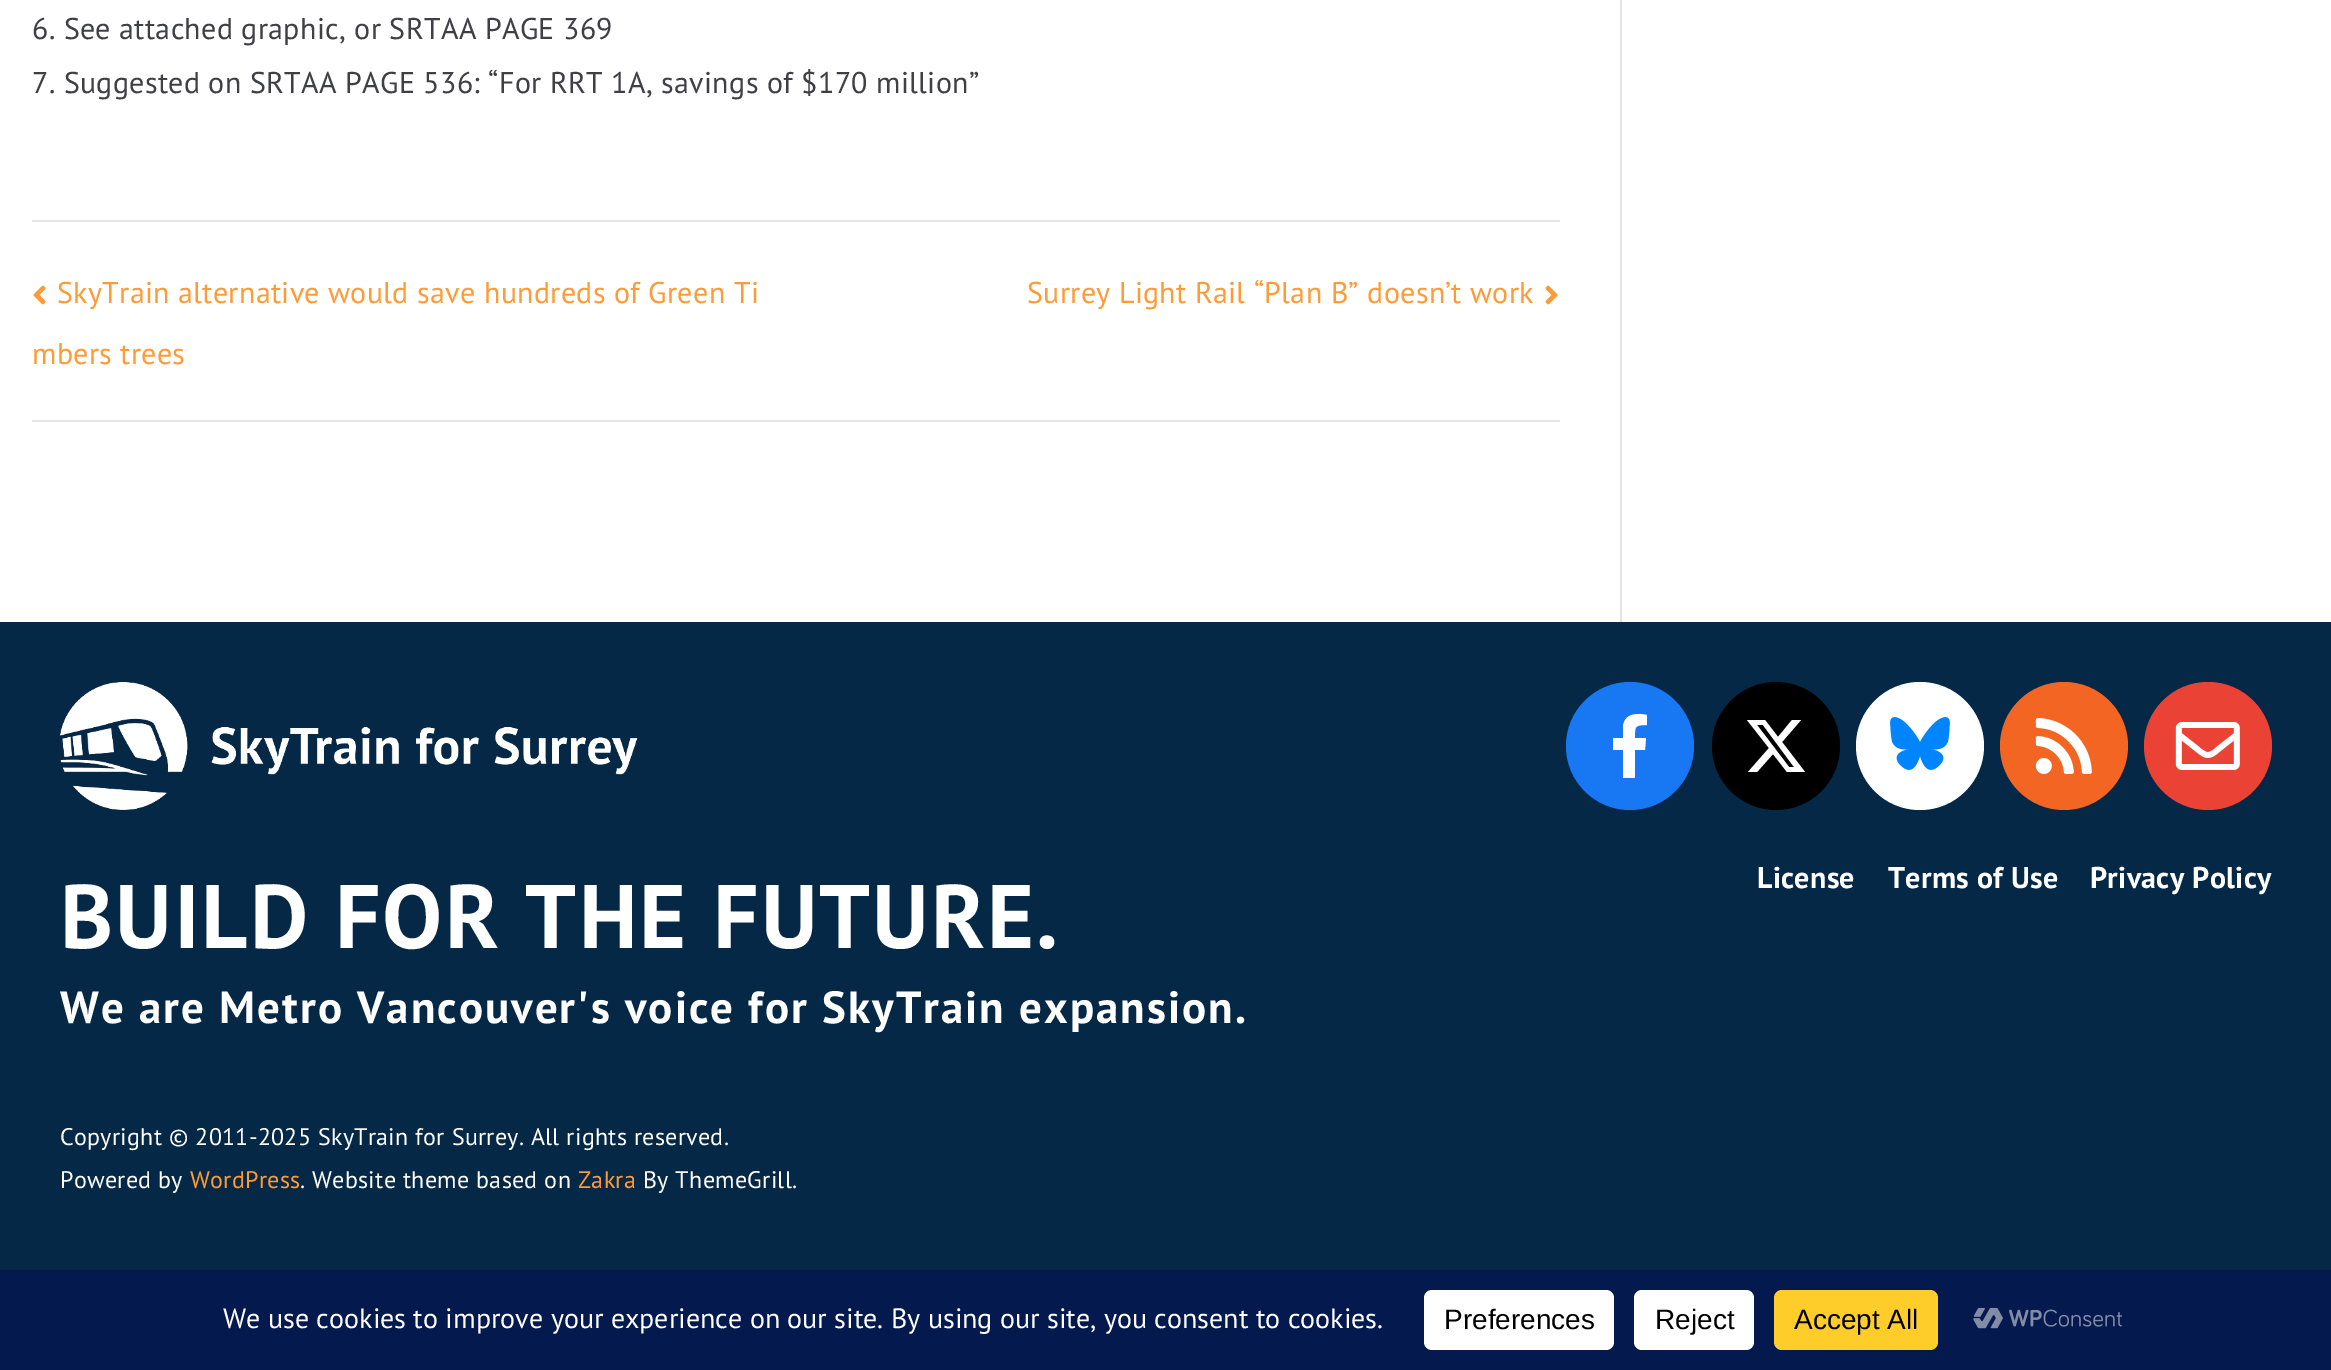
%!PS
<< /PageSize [2331 1370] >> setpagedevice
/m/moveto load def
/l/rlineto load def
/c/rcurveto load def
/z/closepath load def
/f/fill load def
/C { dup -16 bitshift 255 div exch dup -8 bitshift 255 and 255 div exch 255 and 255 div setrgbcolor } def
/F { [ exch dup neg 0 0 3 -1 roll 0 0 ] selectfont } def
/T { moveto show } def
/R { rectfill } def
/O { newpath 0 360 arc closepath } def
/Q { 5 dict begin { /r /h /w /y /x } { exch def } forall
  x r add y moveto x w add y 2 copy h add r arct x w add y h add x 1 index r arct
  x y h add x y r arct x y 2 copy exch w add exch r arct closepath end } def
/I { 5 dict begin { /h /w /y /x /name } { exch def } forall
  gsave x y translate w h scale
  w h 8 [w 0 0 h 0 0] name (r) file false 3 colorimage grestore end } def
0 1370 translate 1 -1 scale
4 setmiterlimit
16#FFFFFF C
0 0 2331 1370 R
/PTSans-Regular 30 F
16#3F3F46 C
32 39 m .3 0 (6. See attached graphic, or SRTAA PAGE 369) ashow
32 93 m .3 0 (7. Suggested on SRTAA PAGE 536: “For RRT 1A, savings of $170 million”) ashow
16#E4E4E7 C
32 220 1528 2 R
32 420 1528 2 R
(1.rgb) 33 285 13 20 I
16#FF9B36 C
57 303 m .3 0 (SkyTrain alternative would save hundreds of Green Ti) ashow
32 364 m .3 0 (mbers trees) ashow
1027 303 m .3 0 (Surrey Light Rail “Plan B” doesn’t work) ashow
(2.rgb) 1545 285 13 20 I
16#E4E4E7 C
1620 0 2 622 R
16#052846 C
0 622 2331 648 R
(3.rgb) 60 682 578 128 I
/PTSans-Bold 90 F
16#FFFFFF C
60 948 m 2 0 (BUILD FOR THE FUTURE.) ashow
/PTSans-Bold 45 F
60 1023 m 2 0 (We are Metro Vancouver's voice for SkyTrain expansion.) ashow
/PTSans-Regular 24 F
60 1145 m .3 0 (Copyright © 2011-2025 SkyTrain for Surrey. All rights reserved.) ashow
60 1188 m .3 0 (Powered by) ashow
16#FF9B36 C
190 1188 m .3 0 (WordPress) ashow
16#FFFFFF C
300 1188 m .3 0 (. Website theme based on) ashow
16#FF9B36 C
578 1188 m .3 0 (Zakra) ashow
16#FFFFFF C
643 1188 m .3 0 (By ThemeGrill.) ashow
16#1877F2 C
1630 746 64 O f
16#FFFFFF C
1645 750 m -10 0 l 0 28 l -12 0 l 0 -28 l -10 0 l 0 -12 l 10 0 l 0 -12 l 2 -13 14 -13 24 -11 c 0 10 l -13 0 -12 2 -12 13 c 11 0 l z f
16#000000 C
1776 746 64 O f
16#FFFFFF C
1792 720 m 9 0 l -19 22 l 23 30 l -18 0 l -14 -18 l -16 18 l -9 0 l 21 -24 l -22 -28 l 18 0 l 13 17 l z 1789 767 m 5 0 l -31 -42 l -6 0 l z f
1920 746 64 O f
(4.rgb) 1890 717 60 53 I
16#F26522 C
2064 746 64 O f
(5.rgb) 2035 718 57 56 I
16#EA4335 C
2208 746 64 O f
(6.rgb) 2175 722 65 48 I
/PTSans-Bold 30 F
16#FFFFFF C
1757 888 m .3 0 (License) ashow
1888 888 m .3 0 (Terms of Use) ashow
2090 888 m .3 0 (Privacy Policy) ashow
16#04194E C
0 1270 2331 100 R
/PTSans-Regular 28 F
16#FFFFFF C
(We use cookies to improve your experience on our site. By using our site, you consent to cookies.) 223 1328 T
1424 1290 190 60 8 Q f
/LiberationSans-Regular 28 F
16#000000 C
(Preferences) 1444 1329 T
16#FFFFFF C
1634 1290 120 60 8 Q f
16#000000 C
(Reject) 1655 1329 T
16#FFCD2A C
1774 1290 164 60 8 Q f
16#000000 C
(Accept All) 1794 1329 T
(7.rgb) 1973 1307 149 22 I
showpage
